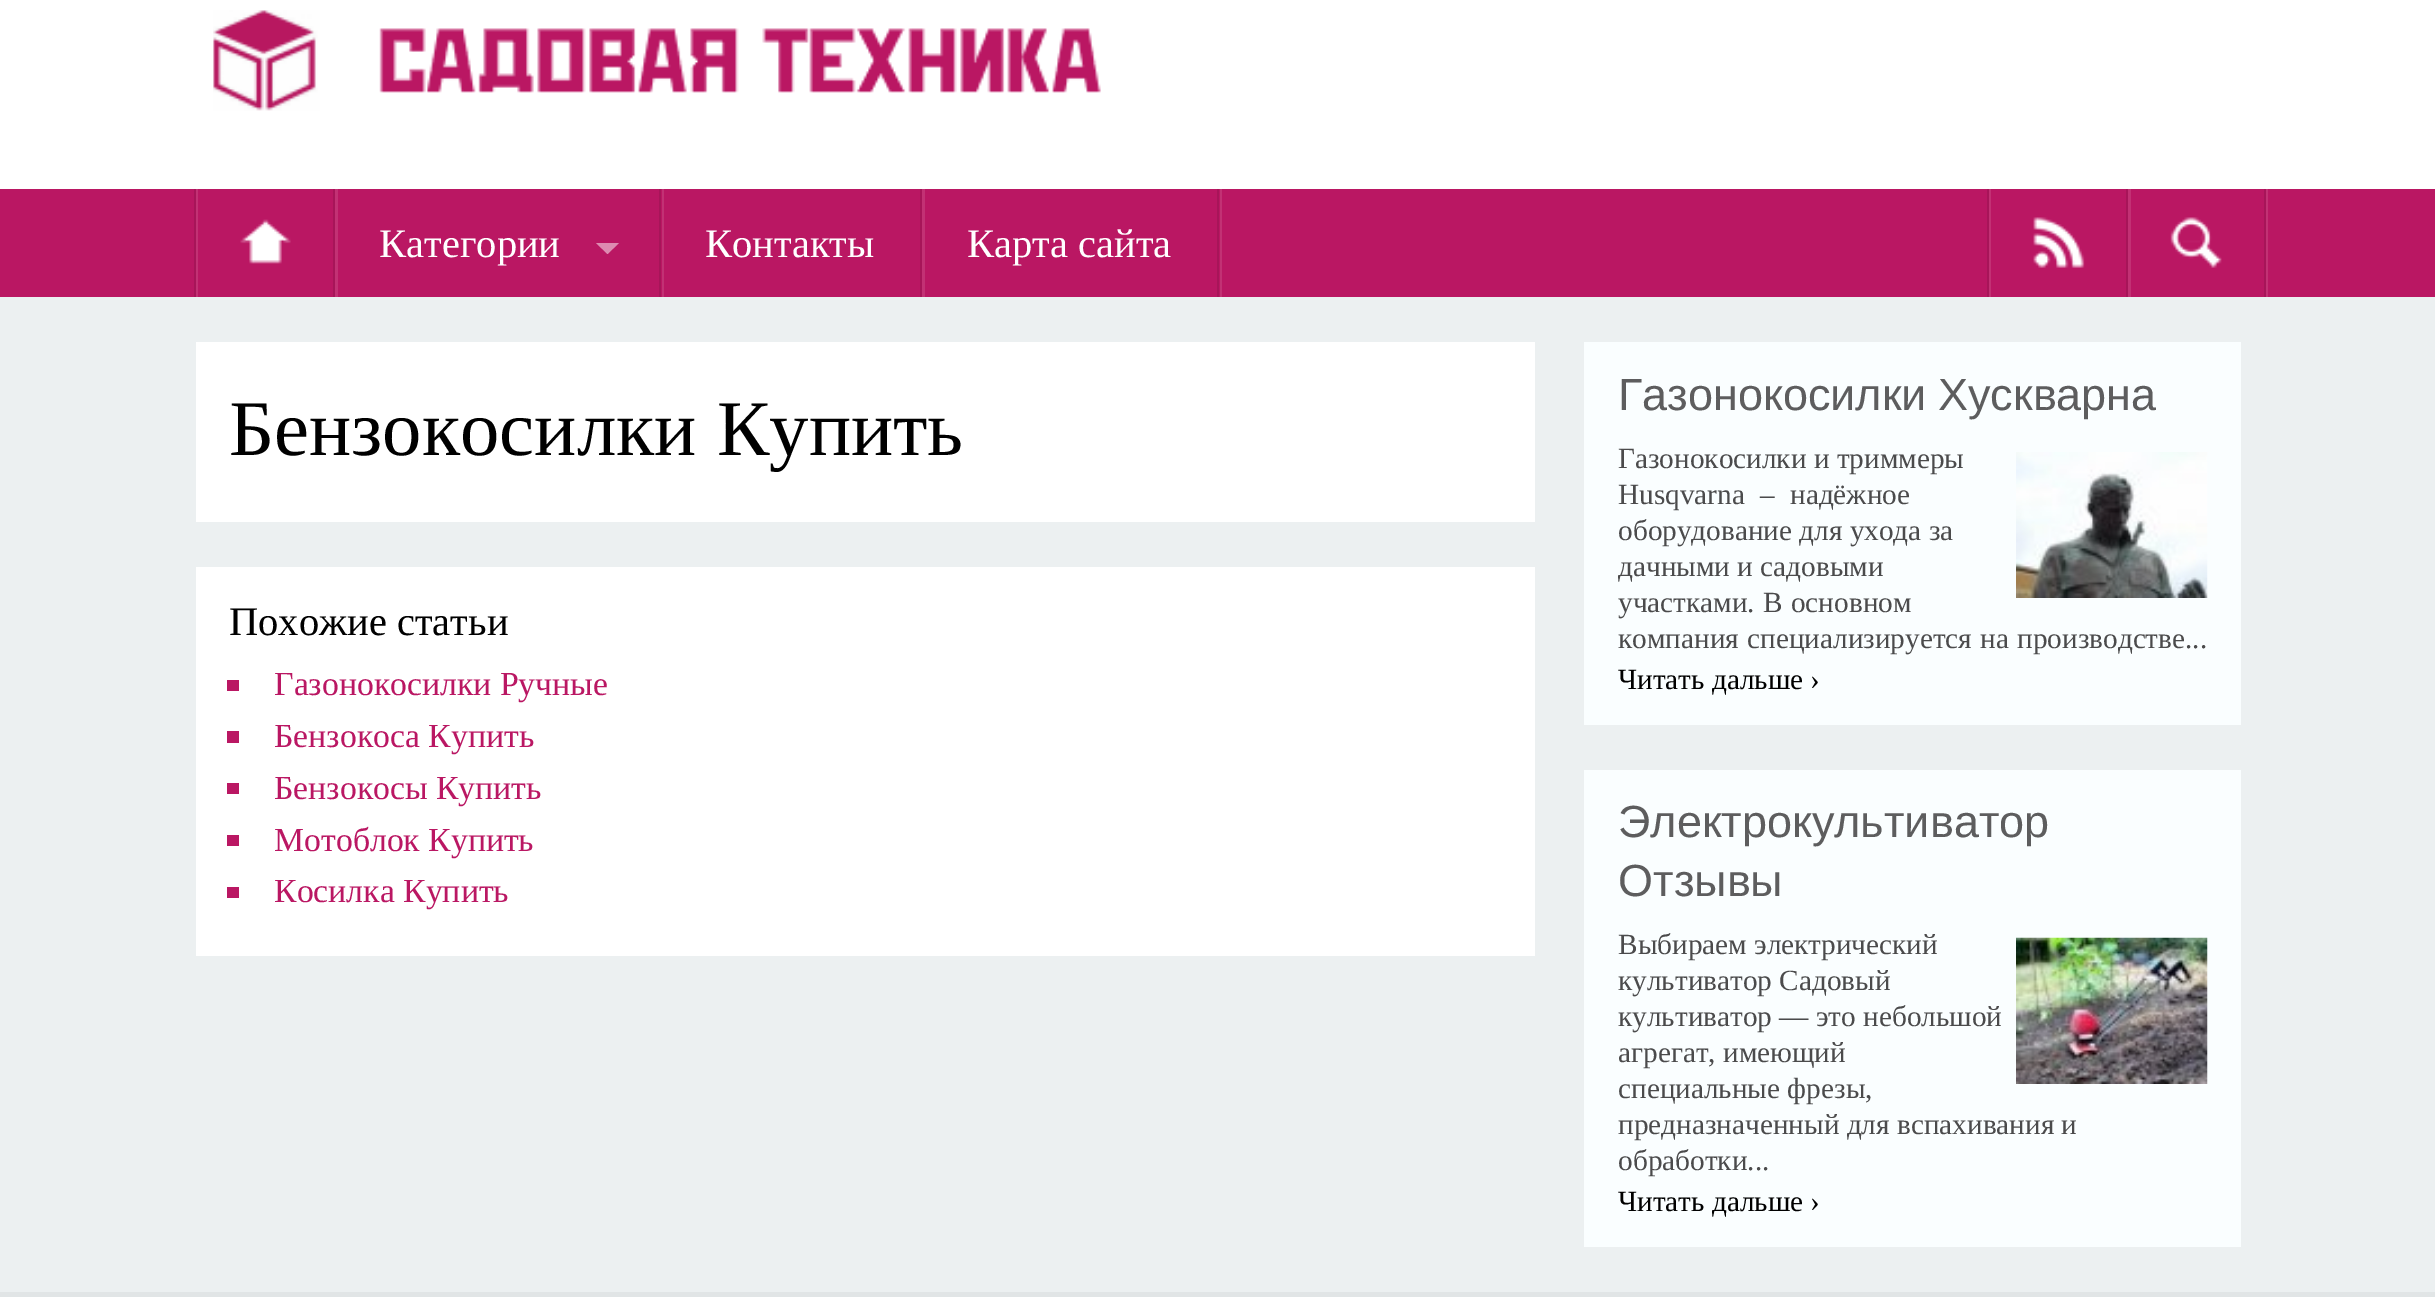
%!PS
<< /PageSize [2435 1297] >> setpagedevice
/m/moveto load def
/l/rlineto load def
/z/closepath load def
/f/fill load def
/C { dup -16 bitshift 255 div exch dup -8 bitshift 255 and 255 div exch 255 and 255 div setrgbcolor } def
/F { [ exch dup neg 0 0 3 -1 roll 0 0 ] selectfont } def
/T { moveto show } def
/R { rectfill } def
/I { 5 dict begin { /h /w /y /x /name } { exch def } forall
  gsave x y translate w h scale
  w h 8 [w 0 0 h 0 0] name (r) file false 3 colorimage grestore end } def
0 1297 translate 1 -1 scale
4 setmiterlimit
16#ECF0F1 C
0 0 2435 1297 R
16#FFFFFF C
0 0 2435 189 R
(1.rgb) 213 10 888 101 I
16#BA1763 C
0 189 2435 108 R
16#A71559 C
194 189 2 108 R
16#C23174 C
196 189 2 108 R
335 189 3 108 R
16#A71559 C
333 189 2 108 R
(2.rgb) 240 219 51 45 I
16#C23174 C
662 189 2 108 R
16#A71559 C
659 189 2 108 R
/LiberationSerif-Regular 40.5 F
16#FFFFFF C
(Категории) 379 257 T
16#DD8BB1 C
596 243 m 23 0 l -11.5 11 l z f
16#C23174 C
922 189 3 108 R
16#A71559 C
920 189 2 108 R
16#FFFFFF C
(Контакты) 705 257 T
16#C23174 C
1220 189 2 108 R
16#A71559 C
1217 189 2 108 R
16#FFFFFF C
(Карта сайта) 967 257 T
16#A71559 C
1987 189 2 108 R
16#C23174 C
1989 189 2 108 R
2128 189 3 108 R
16#A71559 C
2126 189 2 108 R
(3.rgb) 2033 217 52 51 I
16#C23174 C
2266 189 2 108 R
16#A71559 C
2264 189 2 108 R
(4.rgb) 2170 217 52 51 I
16#FFFFFF C
196 342 1339 180 R
/LiberationSerif-Regular 78.75 F
16#000000 C
229 455 m 1 0 32 (Бензокосилки Купить) widthshow
16#FFFFFF C
196 567 1339 389 R
/LiberationSerif-Regular 40.5 F
16#000000 C
(Похожие статьи) 229 635 T
16#BA1763 C
227 680 12 11 R
/LiberationSerif-Regular 33.75 F
(Газонокосилки Ручные) 274 695 T
227 731 12 12 R
(Бензокоса Купить) 274 747 T
227 783 12 11 R
(Бензокосы Купить) 274 799 T
227 835 12 11 R
(Мотоблок Купить) 274 851 T
227 887 12 11 R
(Косилка Купить) 274 902 T
16#FAFEFF C
1584 342 657 383 R
/LiberationSans-Regular 45 F
16#5D5D5E C
1618 410 m -1 0 32 (Газонокосилки Хускварна) widthshow
/LiberationSerif-Regular 29.25 F
16#4B4B4C C
(Газонокосилки и триммеры) 1618 468 T
1618 504 m 8 0 32 (Husqvarna – надёжное) widthshow
(оборудование для ухода за) 1618 540 T
(дачными и садовыми) 1618 576 T
1618 612 m 1 0 32 (участками. В основном) widthshow
1618 648 m 1 0 32 (компания специализируется на производстве...) widthshow
(5.rgb) 2016 452 192 146 I
16#000000 C
(Читать дальше ›) 1618 689 T
16#FAFEFF C
1584 770 657 477 R
/LiberationSans-Regular 45 F
16#5D5D5E C
(Электрокультиватор) 1618 837 T
(Отзывы) 1618 896 T
/LiberationSerif-Regular 29.25 F
16#4B4B4C C
(Выбираем электрический) 1618 954 T
(культиватор Садовый) 1618 990 T
(культиватор — это небольшой) 1618 1026 T
(агрегат, имеющий) 1618 1062 T
(специальные фрезы,) 1618 1098 T
(предназначенный для вспахивания и) 1618 1134 T
(обработки...) 1618 1170 T
(6.rgb) 2016 937 192 147 I
16#000000 C
(Читать дальше ›) 1618 1211 T
16#E1E5E6 C
0 1292 2435 5 R
showpage
